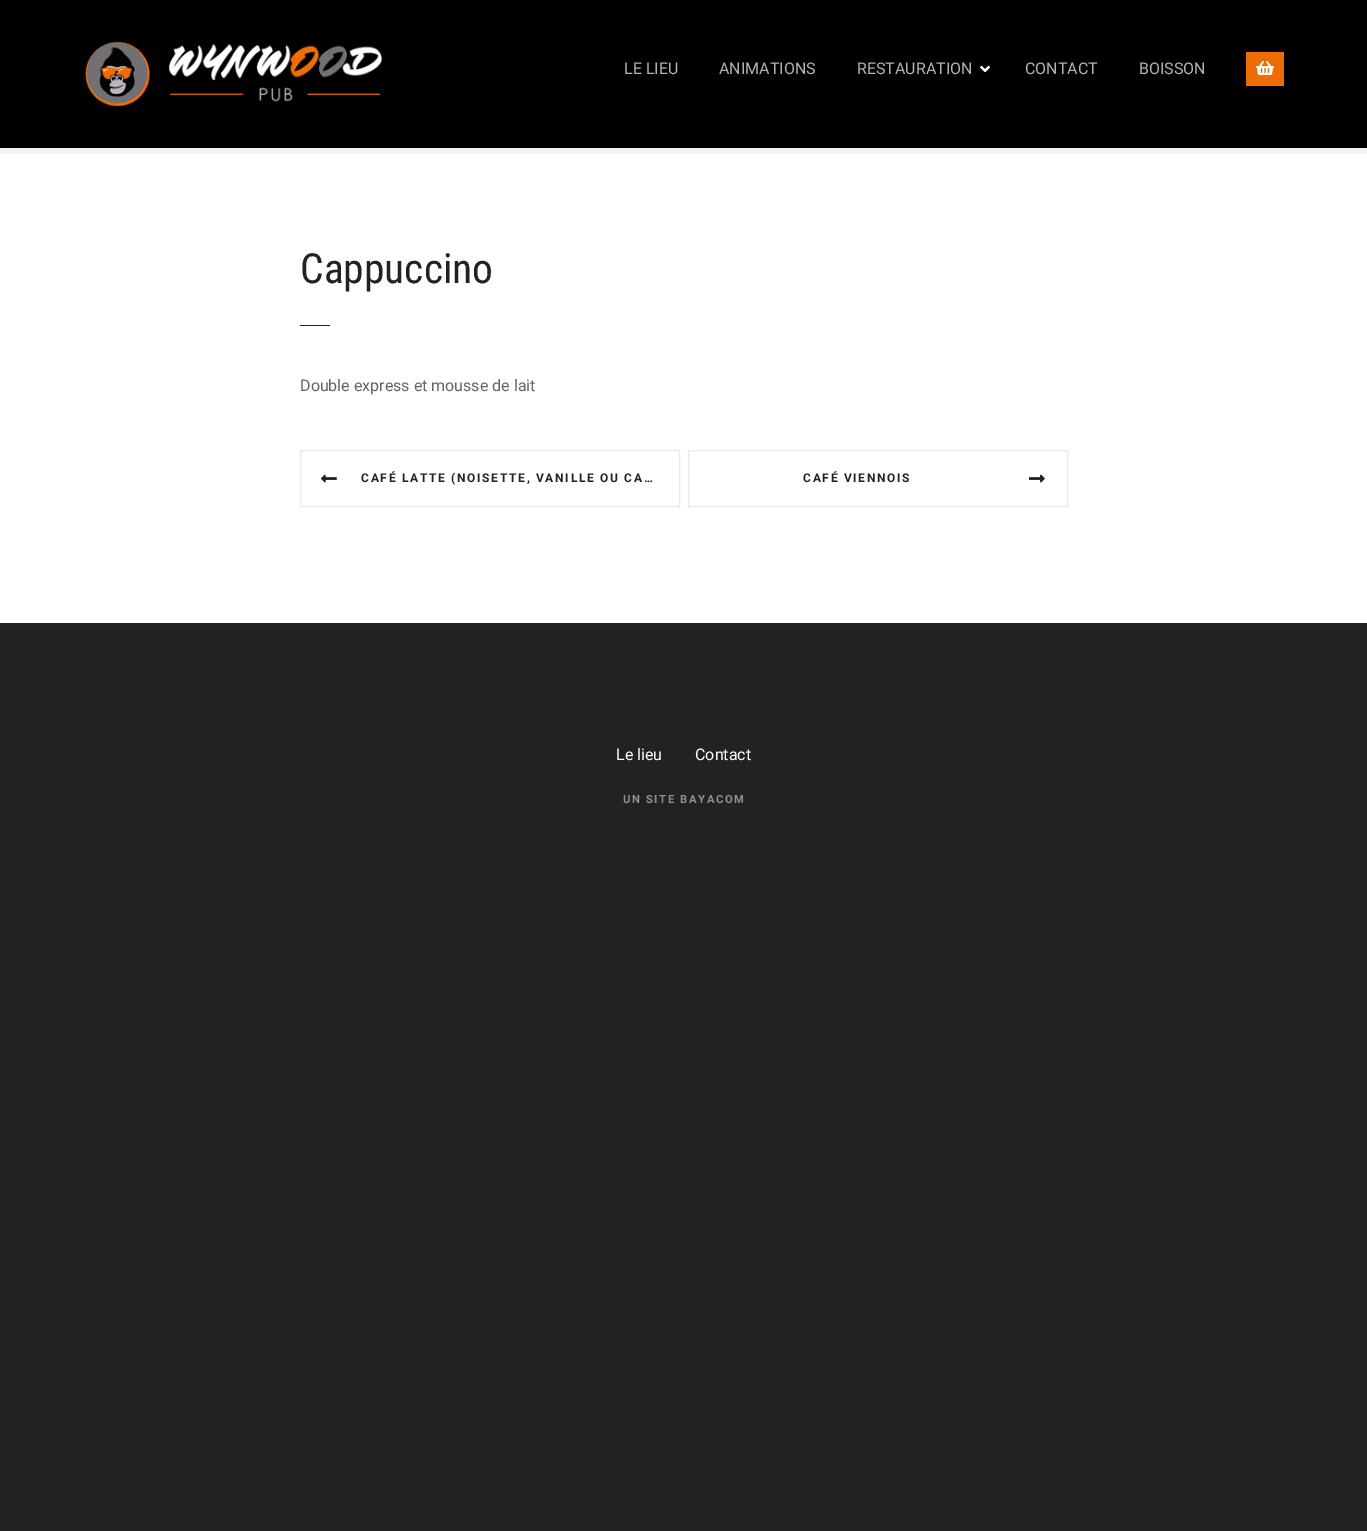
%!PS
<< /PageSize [1367 1531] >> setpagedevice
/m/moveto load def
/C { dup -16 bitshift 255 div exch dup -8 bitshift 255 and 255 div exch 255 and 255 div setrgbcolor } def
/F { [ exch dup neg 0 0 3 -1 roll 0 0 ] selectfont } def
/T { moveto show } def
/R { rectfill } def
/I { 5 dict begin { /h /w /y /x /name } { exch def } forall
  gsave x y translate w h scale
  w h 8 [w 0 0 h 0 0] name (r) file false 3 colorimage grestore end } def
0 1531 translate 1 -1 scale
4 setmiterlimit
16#222222 C
0 0 1367 1531 R
16#FFFFFF C
0 154 1367 469 R
16#000000 C
0 0 1367 148 R
(1.rgb) 85 41 298 66 I
/Roboto-Regular 16 F
16#B3B3B3 C
(LE LIEU) 624 74 T
(ANIMATIONS) 719 74 T
(RESTAURATION) 857 74 T
(2.rgb) 980 65 10 8 I
(CONTACT) 1025 74 T
(BOISSON) 1139 74 T
16#ED6C05 C
1246 52 38 34 R
(3.rgb) 1256 61 18 14 I
16#F2F2F2 C
0 148 1367 6 R
/RobotoCondensed-Regular 41.5 F
16#222222 C
(Cappuccino) 300 283 T
300 325 30 1 R
/Roboto-Regular 16 F
16#646464 C
(Double express et mousse de lait) 300 391 T
16#E9E9E9 C
300.5 450.5 379 56 rectstroke
(4.rgb) 321 474 16 9 I
/Roboto-Bold 12 F
16#222222 C
361 482 m 1.7 0 (CAFÉ LATTE \(NOISETTE, VANILLE OU CA…) ashow
16#E9E9E9 C
688.5 450.5 379 56 rectstroke
16#222222 C
803 482 m 1.7 0 (CAFÉ VIENNOIS) ashow
(5.rgb) 1029 474 16 9 I
/Roboto-Regular 16 F
16#FFFFFF C
(Le lieu) 616 760 T
(Contact) 695 760 T
/Roboto-Bold 11.25 F
16#919191 C
623 803 m 1.6 0 (UN SITE BAYACOM) ashow
showpage
